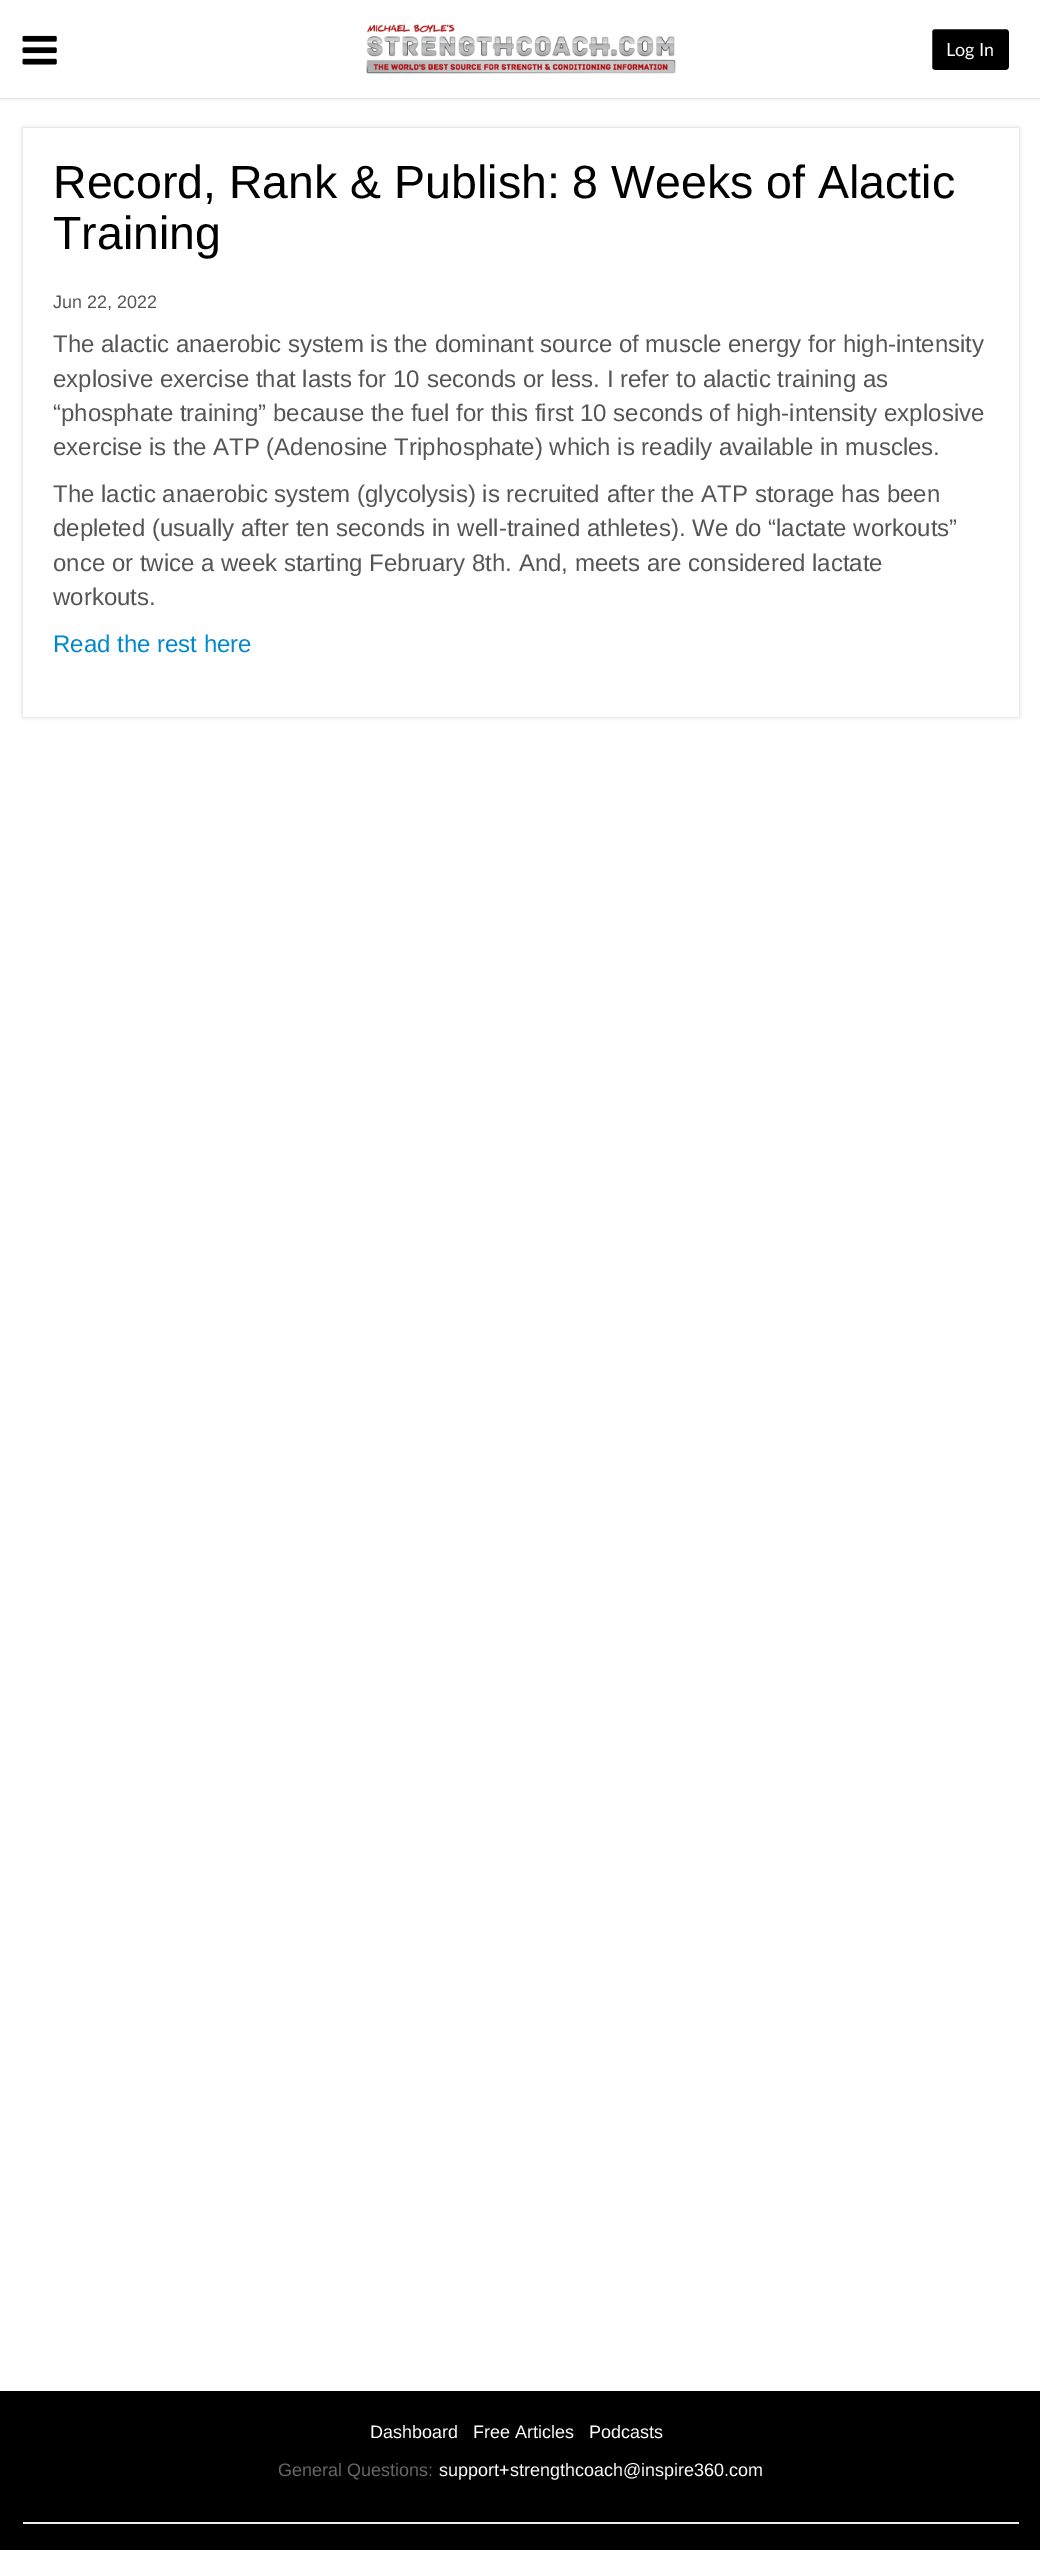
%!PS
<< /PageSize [1040 2550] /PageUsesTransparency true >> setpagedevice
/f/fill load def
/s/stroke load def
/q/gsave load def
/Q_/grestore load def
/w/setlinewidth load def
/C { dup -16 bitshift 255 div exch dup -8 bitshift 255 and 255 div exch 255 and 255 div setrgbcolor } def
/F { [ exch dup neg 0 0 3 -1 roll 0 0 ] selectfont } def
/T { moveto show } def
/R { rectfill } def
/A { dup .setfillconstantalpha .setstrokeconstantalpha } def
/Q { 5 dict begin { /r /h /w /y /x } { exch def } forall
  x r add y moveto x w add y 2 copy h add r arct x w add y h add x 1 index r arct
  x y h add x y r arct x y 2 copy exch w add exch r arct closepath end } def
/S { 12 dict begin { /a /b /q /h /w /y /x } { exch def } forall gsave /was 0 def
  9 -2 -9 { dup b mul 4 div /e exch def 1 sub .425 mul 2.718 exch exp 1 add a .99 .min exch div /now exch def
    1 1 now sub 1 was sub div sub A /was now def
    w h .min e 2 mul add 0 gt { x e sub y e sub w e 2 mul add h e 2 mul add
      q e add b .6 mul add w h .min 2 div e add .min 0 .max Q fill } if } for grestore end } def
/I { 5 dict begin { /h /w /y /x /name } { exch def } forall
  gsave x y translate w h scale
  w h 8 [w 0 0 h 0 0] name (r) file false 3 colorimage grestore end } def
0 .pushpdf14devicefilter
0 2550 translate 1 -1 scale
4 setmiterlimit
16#FFFFFF C
0 0 1040 2550 R
16#000000 C
0 0 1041 98 0 2 .2 S
16#FFFFFF C
0 0 1040 98 R
(1.rgb) 22 35 35 30 I
(2.rgb) 366 24 310 50 I
16#000000 C
931 28 79 43 4 Q q f Q_
16#FFFFFF C
2 w
s
/Lato-Regular 18 F
(Log In) 946 56 T
16#000000 C
23 128 996 589 0 2 .2 S
16#FFFFFF C
23 128 996 589 R
/LiberationSans-Regular 46.5 F
16#000000 C
(Record, Rank & Publish: 8 Weeks of Alactic) 53 198 T
(Training) 53 249 T
/LiberationSans-Regular 18 F
16#555555 C
(Jun 22, 2022) 53 308 T
/LiberationSans-Regular 24 F
(The alactic anaerobic system is the dominant source of muscle energy for high-intensity) 53 352 T
(explosive exercise that lasts for 10 seconds or less. I refer to alactic training as) 53 387 T
(“phosphate training” because the fuel for this first 10 seconds of high-intensity explosive) 53 421 T
(exercise is the ATP \(Adenosine Triphosphate\) which is readily available in muscles.) 53 455 T
(The lactic anaerobic system \(glycolysis\) is recruited after the ATP storage has been) 53 502 T
(depleted \(usually after ten seconds in well-trained athletes\). We do “lactate workouts”) 53 536 T
(once or twice a week starting February 8th. And, meets are considered lactate) 53 571 T
(workouts.) 53 605 T
16#0088CC C
(Read the rest here) 53 652 T
16#000000 C
0 2391 1040 159 R
/LiberationSans-Regular 18 F
16#FFFFFF C
(Dashboard) 370 2438 T
(Free Articles) 473 2438 T
(Podcasts) 589 2438 T
16#666666 C
(General Questions:) 278 2476 T
16#FFFFFF C
(support+strengthcoach@inspire360.com) 439 2476 T
16#EEEEEE C
23 2522 996 2 R
.poppdf14devicefilter showpage
